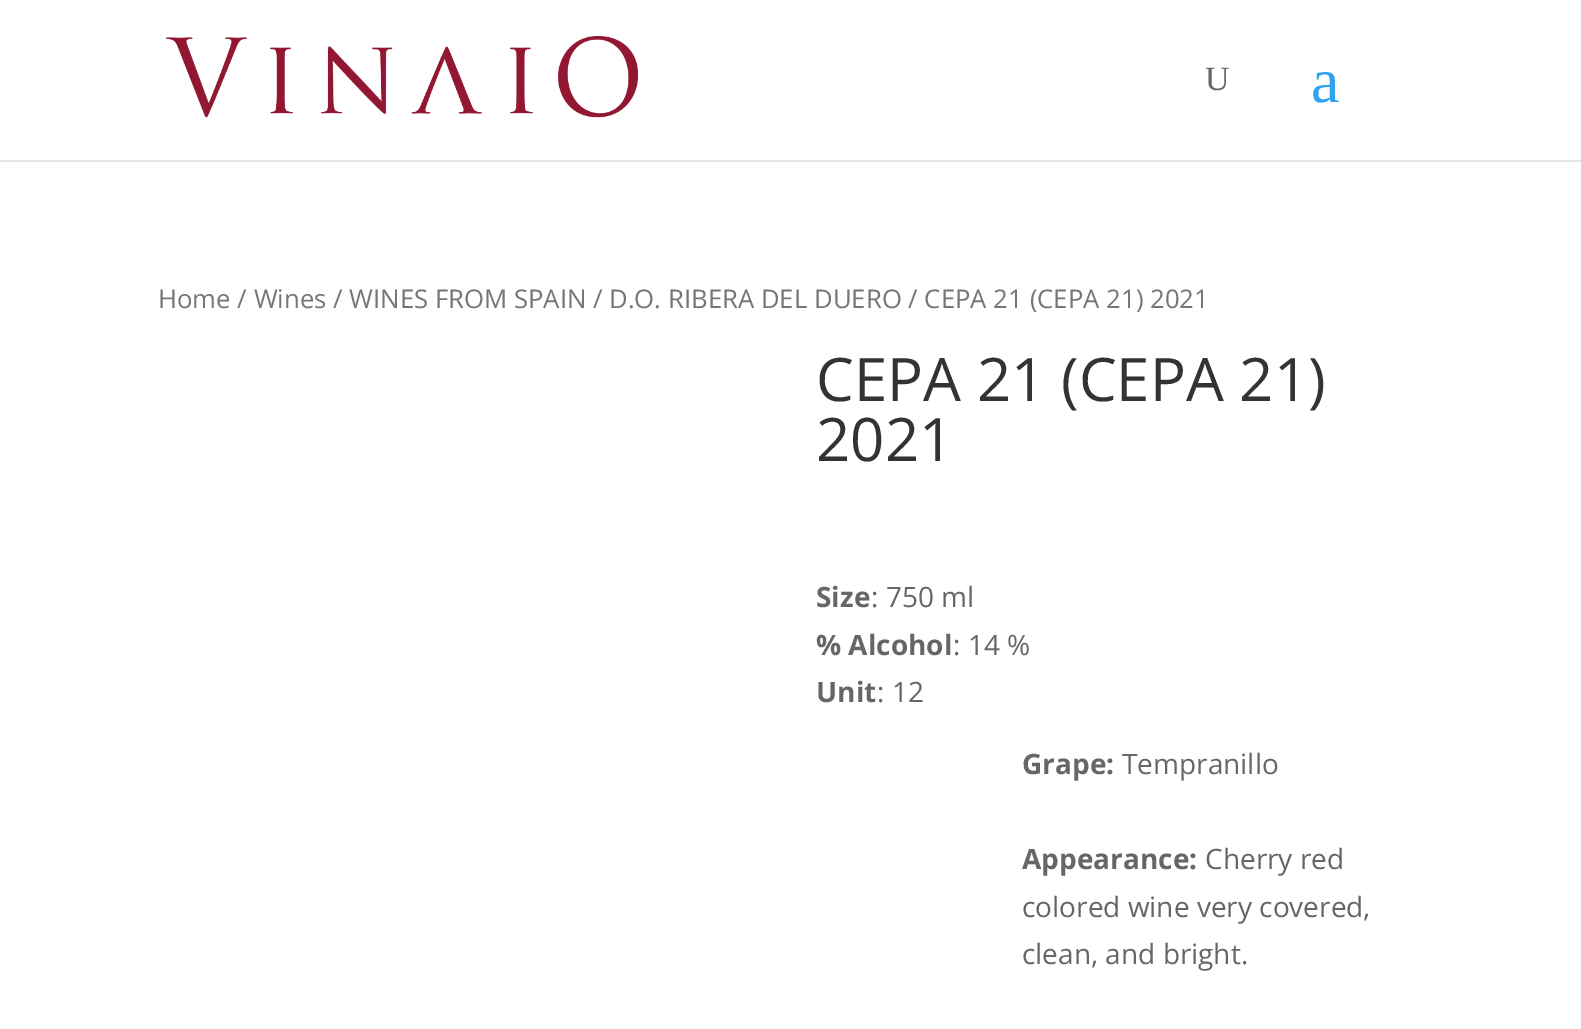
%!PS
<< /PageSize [1581 1029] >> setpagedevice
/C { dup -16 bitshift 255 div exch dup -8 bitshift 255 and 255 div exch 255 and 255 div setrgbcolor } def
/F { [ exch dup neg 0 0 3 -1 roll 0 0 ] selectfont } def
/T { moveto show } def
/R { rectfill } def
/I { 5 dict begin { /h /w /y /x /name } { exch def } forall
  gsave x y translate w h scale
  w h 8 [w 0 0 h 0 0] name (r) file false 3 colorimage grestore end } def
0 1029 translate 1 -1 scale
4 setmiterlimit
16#FFFFFF C
0 0 1581 1029 R
16#E6E6E6 C
0 160 1581 2 R
(1.rgb) 166 36 472 82 I
/LiberationSerif-Regular 34 F
16#666666 C
(U) 1205 90 T
/LiberationSerif-Regular 64 F
16#2EA3F2 C
(a) 1311 102 T
/OpenSans-Regular 25.75 F
16#767676 C
(Home / Wines / WINES FROM SPAIN / D.O. RIBERA DEL DUERO / CEPA 21 \(CEPA 21\) 2021) 158 308 T
/OpenSans-Regular 60 F
16#333333 C
(CEPA 21 \(CEPA 21\)) 816 401 T
(2021) 816 461 T
/OpenSans-Bold 28 F
16#666666 C
(Size) 816 607 T
/OpenSans-Regular 28 F
(: 750 ml) 871 607 T
/OpenSans-Bold 28 F
(% Alcohol) 816 655 T
/OpenSans-Regular 28 F
(: 14 %) 953 655 T
/OpenSans-Bold 28 F
(Unit) 816 702 T
/OpenSans-Regular 28 F
(: 12) 877 702 T
/OpenSans-Bold 28 F
(Grape:) 1022 774 T
/OpenSans-Regular 28 F
(Tempranillo) 1122 774 T
/OpenSans-Bold 28 F
(Appearance:) 1022 869 T
/OpenSans-Regular 28 F
(Cherry red) 1205 869 T
(colored wine very covered,) 1022 917 T
(clean, and bright.) 1022 964 T
showpage
